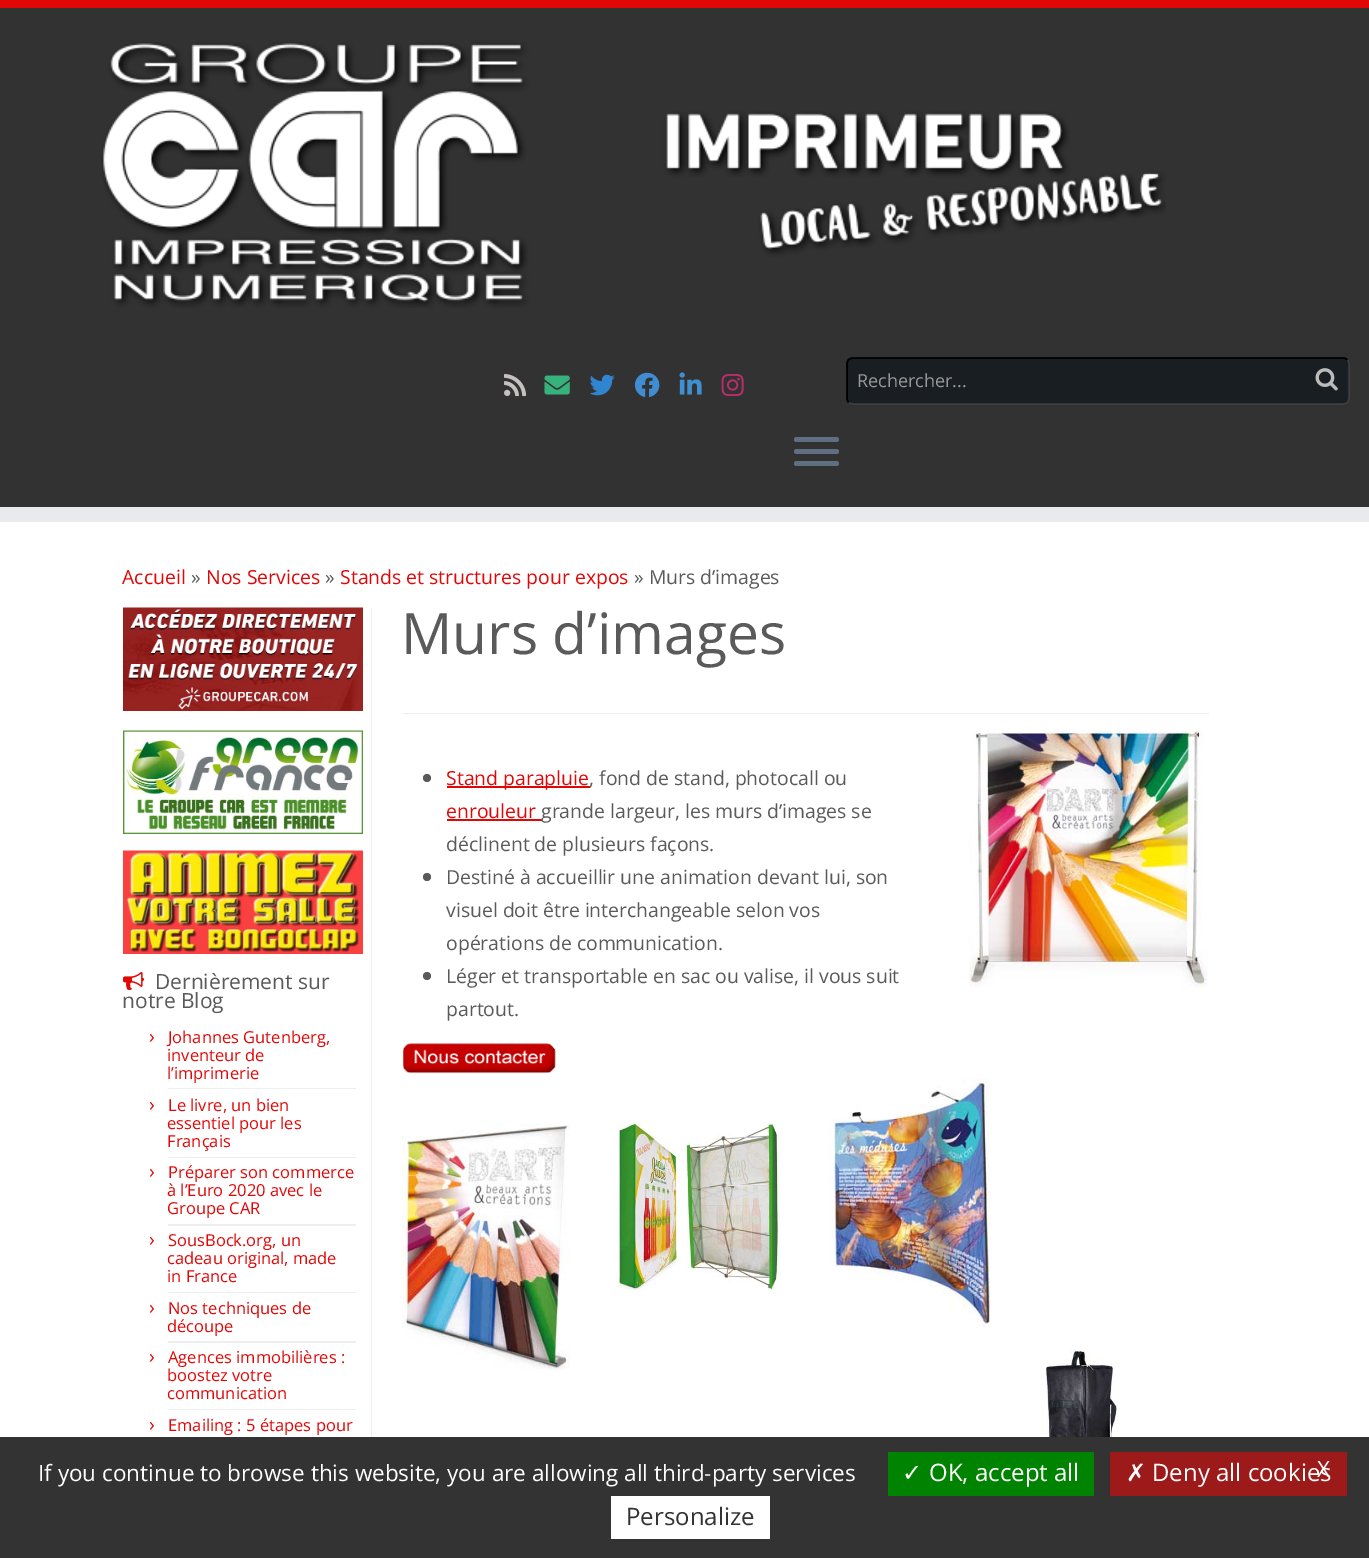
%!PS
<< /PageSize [1369 1558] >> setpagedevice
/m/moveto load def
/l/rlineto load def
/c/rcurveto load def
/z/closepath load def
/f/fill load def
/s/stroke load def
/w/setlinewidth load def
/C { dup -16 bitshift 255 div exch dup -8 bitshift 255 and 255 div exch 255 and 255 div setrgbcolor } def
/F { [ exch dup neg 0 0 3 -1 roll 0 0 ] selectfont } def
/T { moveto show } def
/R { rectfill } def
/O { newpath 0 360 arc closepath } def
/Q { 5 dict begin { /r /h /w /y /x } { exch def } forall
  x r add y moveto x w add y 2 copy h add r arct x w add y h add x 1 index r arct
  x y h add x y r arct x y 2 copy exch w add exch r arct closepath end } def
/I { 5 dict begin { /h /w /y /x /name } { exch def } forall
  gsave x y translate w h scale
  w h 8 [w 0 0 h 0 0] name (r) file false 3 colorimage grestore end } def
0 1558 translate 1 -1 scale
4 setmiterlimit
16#FFFFFF C
0 0 1369 1558 R
16#323232 C
0 8 1369 499 R
16#E10707 C
0 0 1369 8 R
16#E9EAEE C
0 507 1369 15 R
(1.rgb) 101 42 1065 266 I
(2.rgb) 504 374 23 23 I
(3.rgb) 544 375 26 20 I
(4.rgb) 589 374 26 22 I
(5.rgb) 634 372 26 26 I
(6.rgb) 679 372 23 23 I
(7.rgb) 721 374 23 23 I
16#191E23 C
846 357 504 48 8 Q f
16#171C20 C
854 360 m 488 0 l 4 0 6 3 6 6 c 0 33 l 0 1 0 2 -1 3 c 1 -1 2 -2 2 -4 c 0 -33 l 0 -3 -3 -6 -6 -6 c -489 0 l -3 0 -6 3 -6 6 c 0 1 l 0 -3 2 -6 6 -6 c z f
16#3F3F3F C
1.5 w
1347.5 359.5 m 1 1.5 1.5 3 1.5 5 c 0 33 l 0 2 -.5 3.5 -1.5 5 c -1.5 1 -3 1.5 -5 1.5 c -489 0 l -2 0 -3.5 -.5 -5 -1.5 c s
16#000000 C
848.5 402.5 m -1 -1.5 -1.5 -3 -1.5 -5 c 0 -33 l 0 -2 .5 -3.5 1.5 -5 c 1.5 -1 3 -1.5 5 -1.5 c 489 0 l 2 0 3.5 .5 5 1.5 c s
/OpenSans-Regular 18 F
16#999999 C
(Rechercher...) 857 387 T
(8.rgb) 1315 368 23 23 I
16#5F6F81 C
794 437 45 5 2.5 Q f
794 449 45 5 2.5 Q f
794 461 45 5 2.5 Q f
/OpenSans-Regular 19.4 F
16#E10707 C
(Accueil) 122 584 T
16#5A5A5A C
(») 191 584 T
16#E10707 C
(Nos Services) 206 584 T
16#5A5A5A C
(») 325 584 T
16#E10707 C
(Stands et structures pour expos) 340 584 T
16#5A5A5A C
(» Murs d’images) 634 584 T
/OpenSans-Regular 57 F
(Murs d’images) 401 654 T
16#EEEEEE C
402 713 807 1 R
16#5A5A5A C
427 778 4 O f
16#E10707 C
447 786 143 2 R
/OpenSans-Regular 19.4 F
(Stand parapluie) 446 785 T
16#5A5A5A C
(, fond de stand, photocall ou) 589 785 T
16#E10707 C
(enrouleur) 446 818 T
447 819 95 2 R
16#5A5A5A C
(grande largeur, les murs d’images se) 541 818 T
(déclinent de plusieurs façons.) 446 851 T
427 877 4 O f
(Destiné à accueillir une animation devant lui, son) 446 884 T
(visuel doit être interchangeable selon vos) 446 917 T
(opérations de communication.) 446 950 T
427 976 4 O f
(Léger et transportable en sac ou valise, il vous suit) 446 983 T
(partout.) 446 1016 T
(9.rgb) 403 1043 153 31 I
(10.rgb) 969 730 239 259 I
(11.rgb) 402 1123 168 247 I
(12.rgb) 615 1123 167 167 I
(13.rgb) 828 1078 162 249 I
(14.rgb) 1041 1348 82 89 I
16#EEEEEE C
371 608 1 829 R
(15.rgb) 123 607 240 104 I
(16.rgb) 123 730 240 104 I
(17.rgb) 123 850 240 104 I
(18.rgb) 123 971 22 19 I
/OpenSans-Regular 21 F
16#5A5A5A C
(Dernièrement sur) 155 989 T
(notre Blog) 122 1008 T
16#EEEEEE C
168 1088 188 1 R
/OpenSans-Regular 19.4 F
16#E10707 C
(›) 149 1043 T
/OpenSans-Regular 16.5 F
(Johannes Gutenberg,) 168 1043 T
(inventeur de) 167 1061 T
(l’imprimerie) 167 1079 T
16#EEEEEE C
168 1157 188 1 R
/OpenSans-Regular 19.4 F
16#E10707 C
(›) 149 1111 T
/OpenSans-Regular 16.5 F
(Le livre, un bien) 168 1111 T
(essentiel pour les) 167 1129 T
(Français) 167 1147 T
16#EEEEEE C
168 1224 188 2 R
/OpenSans-Regular 19.4 F
16#E10707 C
(›) 149 1178 T
/OpenSans-Regular 16.5 F
(Préparer son commerce) 168 1178 T
(à l’Euro 2020 avec le) 167 1196 T
(Groupe CAR) 167 1214 T
16#EEEEEE C
168 1292 188 1 R
/OpenSans-Regular 19.4 F
16#E10707 C
(›) 149 1246 T
/OpenSans-Regular 16.5 F
(SousBock.org, un) 168 1246 T
(cadeau original, made) 167 1264 T
(in France) 167 1282 T
16#EEEEEE C
168 1341 188 2 R
/OpenSans-Regular 19.4 F
16#E10707 C
(›) 149 1314 T
/OpenSans-Regular 16.5 F
(Nos techniques de) 168 1314 T
(découpe) 167 1332 T
16#EEEEEE C
168 1409 188 1 R
/OpenSans-Regular 19.4 F
16#E10707 C
(›) 149 1363 T
/OpenSans-Regular 16.5 F
(Agences immobilières :) 168 1363 T
(boostez votre) 167 1381 T
(communication) 167 1399 T
/OpenSans-Regular 19.4 F
(›) 149 1431 T
/OpenSans-Regular 16.5 F
(Emailing : 5 étapes pour) 168 1431 T
16#333333 C
0 1437 1369 121 R
16#008300 C
888 1452 206 44 R
/DejaVuSans-Regular 24 F
16#FFFFFF C
(✓) 902 1481 T
/OpenSans-Regular 24 F
(OK, accept all) 929 1481 T
16#9C1A1A C
1110 1452 237 44 R
16#FFFFFF C
(Deny all cookies) 1152 1481 T
/OpenSans-Regular 22.5 F
(X) 1317 1477 T
(If you continue to browse this website, you are allowing all third-party services) 38 1481 T
/DejaVuSans-Regular 24 F
(✗) 1126 1481 T
611 1496 159 43 R
/OpenSans-Regular 24 F
16#333333 C
(Personalize) 626 1525 T
showpage
